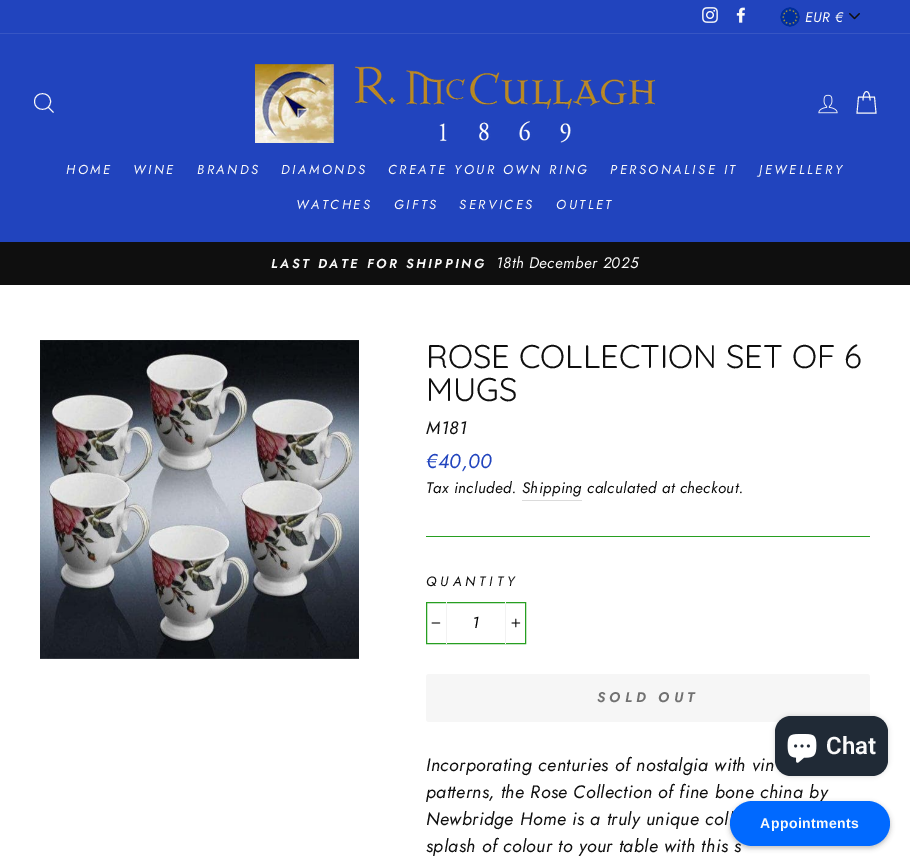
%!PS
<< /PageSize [910 861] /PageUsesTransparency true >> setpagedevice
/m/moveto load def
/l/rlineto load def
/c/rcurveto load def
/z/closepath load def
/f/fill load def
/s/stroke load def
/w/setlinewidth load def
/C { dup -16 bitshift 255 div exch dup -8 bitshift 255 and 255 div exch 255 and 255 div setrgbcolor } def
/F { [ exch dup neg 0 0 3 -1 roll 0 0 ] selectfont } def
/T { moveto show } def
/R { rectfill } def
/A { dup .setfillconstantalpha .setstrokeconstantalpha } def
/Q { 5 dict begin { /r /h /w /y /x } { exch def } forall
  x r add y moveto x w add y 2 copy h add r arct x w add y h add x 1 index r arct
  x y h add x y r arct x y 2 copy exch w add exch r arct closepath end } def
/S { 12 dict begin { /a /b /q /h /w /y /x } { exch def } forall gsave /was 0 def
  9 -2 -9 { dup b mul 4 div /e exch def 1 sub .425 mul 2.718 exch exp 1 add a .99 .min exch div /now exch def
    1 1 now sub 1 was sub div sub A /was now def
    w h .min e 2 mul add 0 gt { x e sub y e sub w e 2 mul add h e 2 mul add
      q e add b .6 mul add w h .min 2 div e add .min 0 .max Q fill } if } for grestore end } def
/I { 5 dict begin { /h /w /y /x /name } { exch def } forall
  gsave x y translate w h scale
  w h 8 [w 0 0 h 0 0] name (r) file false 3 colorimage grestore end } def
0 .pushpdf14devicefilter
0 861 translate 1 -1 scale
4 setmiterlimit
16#FFFFFF C
0 0 910 861 R
16#2144BE C
0 0 910 33 R
(1.rgb) 702 7 16 16 I
(2.rgb) 736 7 9 16 I
(3.rgb) 849 13 11 7 I
(4.rgb) 780 7 20 20 I
/Jost-Italic 14 F
16#FAFAFA C
805 22 m .5 0 (EUR €) ashow
16#2144BE C
0 34 910 208 R
16#3756C4 C
0 33 910 1 R
16#FAFAFA C
.9 w
50.5 101.5 m 0 10.5 -16 10.5 -16 0 c 0 -10.5 16 -10.5 16 0 c z 53.5 112.5 m -5 -5 l s
(5.rgb) 255 64 400 79 I
(6.rgb) 818 94 20 20 I
863 100.5 m 0 -12 7 -12 7 0 c 858.5 97 m 16 0 l 1.5 16 l -19 0 l z s
/Jost-Italic 13 F
66 174 m 2.6 0 (HOME) ashow
133 174 m 2.6 0 (WINE) ashow
197 174 m 2.6 0 (BRANDS) ashow
281 174 m 2.6 0 (DIAMONDS) ashow
388 174 m 2.6 0 (CREATE YOUR OWN RING) ashow
610 174 m 2.6 0 (PERSONALISE IT) ashow
759 174 m 2.6 0 (JEWELLERY) ashow
296 209 m 2.6 0 (WATCHES) ashow
394 209 m 2.6 0 (GIFTS) ashow
459 209 m 2.6 0 (SERVICES) ashow
556 209 m 2.6 0 (OUTLET) ashow
16#0F0F0F C
0 242 910 43 R
/Jost-SemiBoldItalic 13 F
16#FAFAFA C
271 268 m 2.6 0 (LAST DATE FOR SHIPPING) ashow
/Jost-Italic 15.25 F
496 268 m .45 0 (18th December 2025) ashow
(7.rgb) 40 340 319 319 I
/Quicksand-Light 32.75 F
16#0F0F0F C
(ROSE COLLECTION SET OF 6) 426 368 T
(MUGS) 426 401 T
/Jost-Italic 18 F
426 434 m .45 0 (M181) ashow
/Jost-Italic 20 F
16#2144BE C
426 468 m .45 0 (€40,00) ashow
/Jost-Italic 15.25 F
16#0F0F0F C
426 493 m .45 0 (Tax included. Shipping) ashow
587 493 m .45 0 (calculated at checkout.) ashow
16#DBDBDB C
522 500 60 1 R
16#279F21 C
426 536 444 1 R
/Jost-Italic 13.5 F
16#0F0F0F C
426 586 m 4 0 (QUANTITY) ashow
16#279F21 C
1 w
426.5 602.5 99 41 rectstroke
16#F2F2F2 C
446 602 1 42 R
(8.rgb) 431 622 10 2 I
/Jost-Italic 16 F
16#000000 C
(1) 472 628 T
16#F2F2F2 C
505 602 1 42 R
(9.rgb) 511 618 10 10 I
16#F6F6F6 C
426 674 444 48 3 Q f
/Jost-SemiBoldItalic 14 F
16#717171 C
597 702 m 4.25 0 (SOLD OUT) ashow
/Jost-Italic 18 F
16#0F0F0F C
426 771 m .45 0 (Incorporating centuries of nostalgia with vin) ashow
426 798 m .45 0 (patterns, the Rose Collection of fine bone china by) ashow
426 825 m .45 0 (Newbridge Home is a truly unique coll) ashow
426 852 m .45 0 (splash of colour to your table with this s) ashow
16#000000 C
775 716 113 60 16 2.5 .15 S
16#202A36 C
775 716 113 60 16 Q f
(10.rgb) 787 734 30 29 I
/Roboto-SemiBold 24 F
16#FAFAFA C
(Chat) 826 754 T
16#000000 C
730 803 160 45 22.5 2.5 .25 S
16#0069FF C
730 801 160 45 22.5 Q f
/LiberationSans-Bold 14 F
16#FAFAFA C
760 828 m .45 0 (Appointments) ashow
.poppdf14devicefilter showpage
